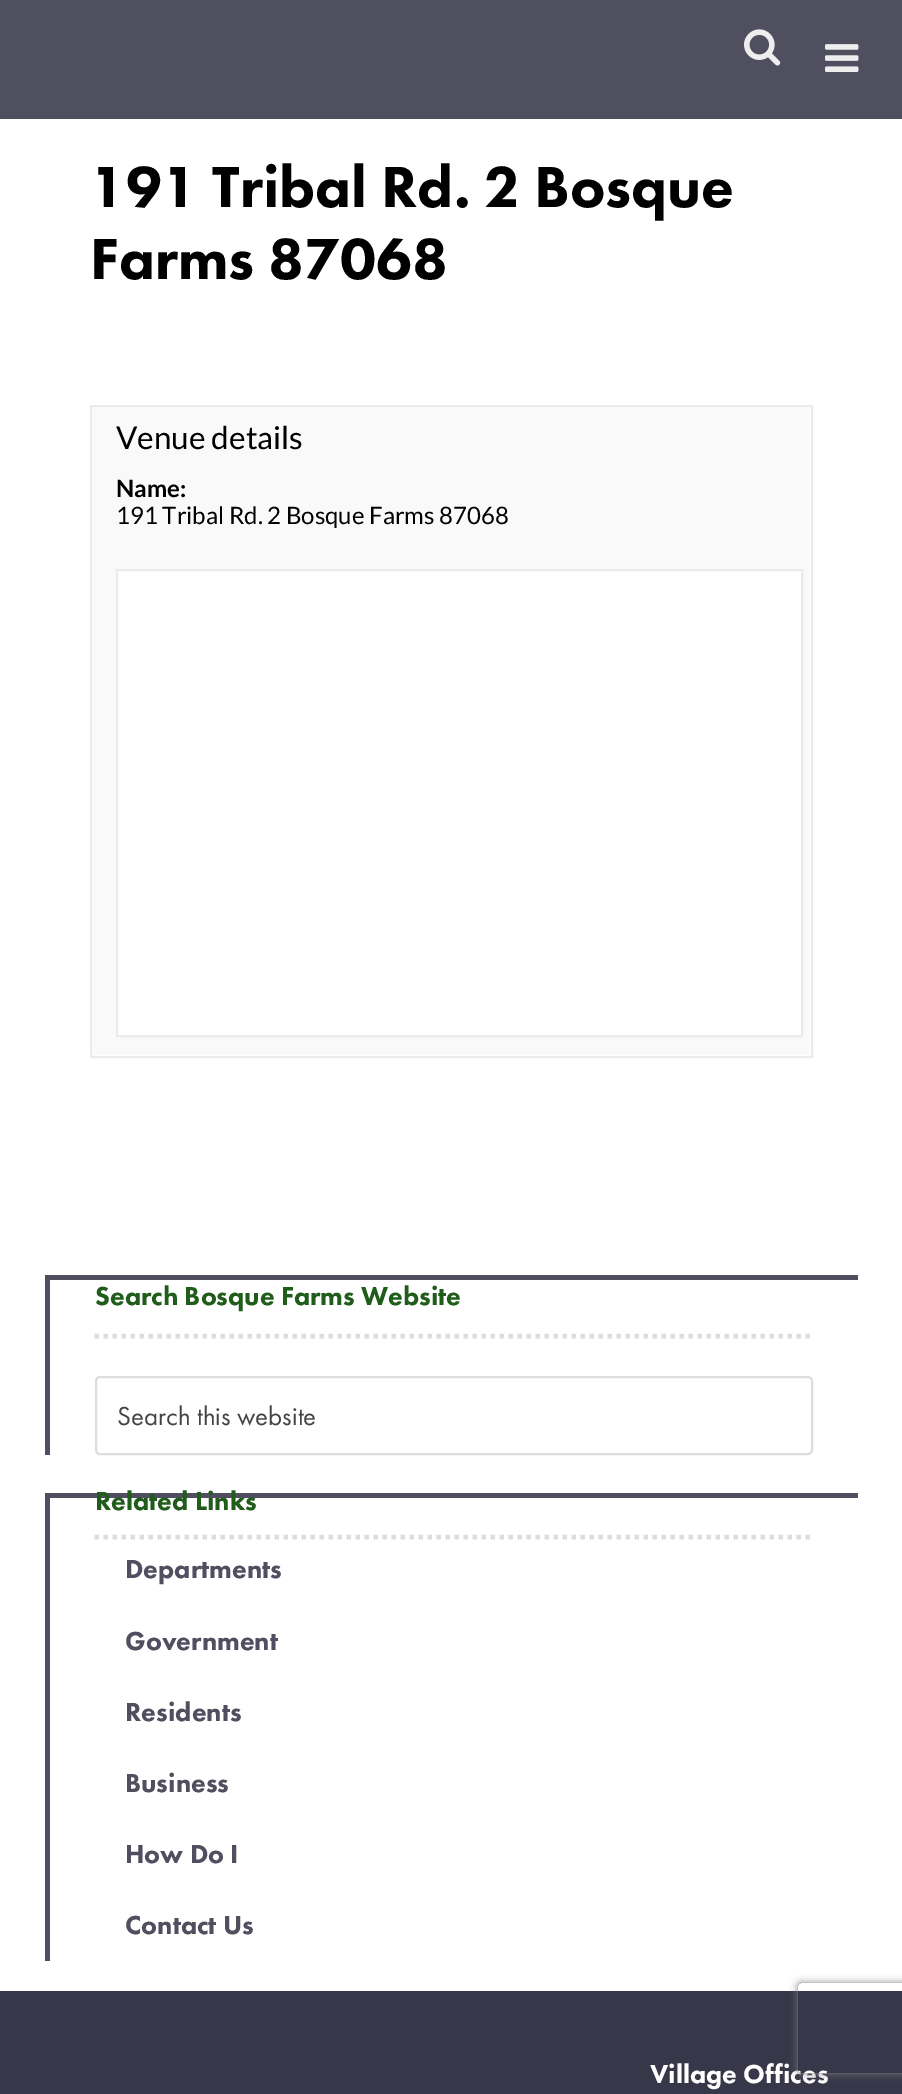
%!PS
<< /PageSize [902 2094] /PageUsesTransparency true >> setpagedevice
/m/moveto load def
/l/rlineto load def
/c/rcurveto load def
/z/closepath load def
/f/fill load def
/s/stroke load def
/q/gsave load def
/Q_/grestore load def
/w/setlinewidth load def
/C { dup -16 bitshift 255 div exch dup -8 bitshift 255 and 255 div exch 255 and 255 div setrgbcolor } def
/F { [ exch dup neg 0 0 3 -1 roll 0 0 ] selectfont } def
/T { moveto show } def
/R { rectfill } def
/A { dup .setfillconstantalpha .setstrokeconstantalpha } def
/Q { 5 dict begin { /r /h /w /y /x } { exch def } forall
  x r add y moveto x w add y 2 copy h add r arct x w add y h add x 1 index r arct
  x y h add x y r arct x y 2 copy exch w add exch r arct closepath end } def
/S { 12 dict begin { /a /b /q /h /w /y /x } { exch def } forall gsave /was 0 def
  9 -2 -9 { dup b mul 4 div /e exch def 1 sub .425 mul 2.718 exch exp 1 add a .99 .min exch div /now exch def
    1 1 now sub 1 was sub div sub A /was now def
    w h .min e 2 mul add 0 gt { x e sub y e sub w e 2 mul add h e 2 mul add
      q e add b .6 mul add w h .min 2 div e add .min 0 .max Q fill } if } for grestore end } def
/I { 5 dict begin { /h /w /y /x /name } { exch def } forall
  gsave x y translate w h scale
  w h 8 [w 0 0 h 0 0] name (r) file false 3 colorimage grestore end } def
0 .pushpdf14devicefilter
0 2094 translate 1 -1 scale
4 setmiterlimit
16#FFFFFF C
0 0 902 2094 R
16#4F4F60 C
0 0 902 119 R
(1.rgb) 744 29 37 37 I
(2.rgb) 825 44 34 28 I
/FuturaPT-Black 60 F
16#000000 C
(191 Tribal Rd. 2 Bosque) 90 207 T
(Farms 87068) 90 279 T
16#EBEBEB C
2 w
91 406 721 651 rectstroke
16#F9F9F9 C
93 408 717 647 R
/Lato-Regular 31.5 F
16#000000 C
(Venue details) 116 449 T
/Lato-Bold 24 F
(Name:) 116 497 T
/Lato-Regular 24 F
(191 Tribal Rd. 2 Bosque Farms 87068) 116 524 T
16#FFFFFF C
117 570 m 685 0 l 0 466 l -685 0 l z q f Q_
16#EBEBEB C
s
16#4F4F60 C
45 1275 813 5 R
45 1275 5 180 R
16#DDDDDD C
4.5 w
[4.5 4.5] 0 setdash
94.5 1336 m 718.5 0 l s
/FuturaPT-Black 27 F
16#205D1A C
(Search Bosque Farms Website) 95 1305 T
16#DDDDDD C
2 w
[] 0 setdash
96 1377 716 77 4 Q s
/FuturaPT-Regular 27 F
16#444444 C
(Search this website) 117 1425 T
16#4F4F60 C
45 1493 813 5 R
45 1493 5 468 R
16#DDDDDD C
4.5 w
[4.5 4.5] 0 setdash
94.5 1537 m 718.5 0 l s
/FuturaPT-Black 27 F
16#205D1A C
(Related Links) 95 1510 T
16#4F4F60 C
(Departments) 125 1578 T
(Government) 125 1650 T
(Residents) 125 1721 T
(Business) 125 1792 T
(How Do I) 125 1863 T
(Contact Us) 125 1934 T
16#373749 C
0 1991 902 103 R
16#FFFFFF C
(Village Offices) 650 2083 T
q
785 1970 m 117 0 l 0 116 l -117 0 l z 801 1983 m 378 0 l 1.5 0 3 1.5 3 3 c 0 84 l 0 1.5 -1.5 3 -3 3 c -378 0 l -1.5 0 -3 -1.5 -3 -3 c 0 -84 l 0 -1.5 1.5 -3 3 -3 c z eoclip newpath
16#808080 C
798 1983 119 90 3 4 1 S
Q_
.poppdf14devicefilter showpage
